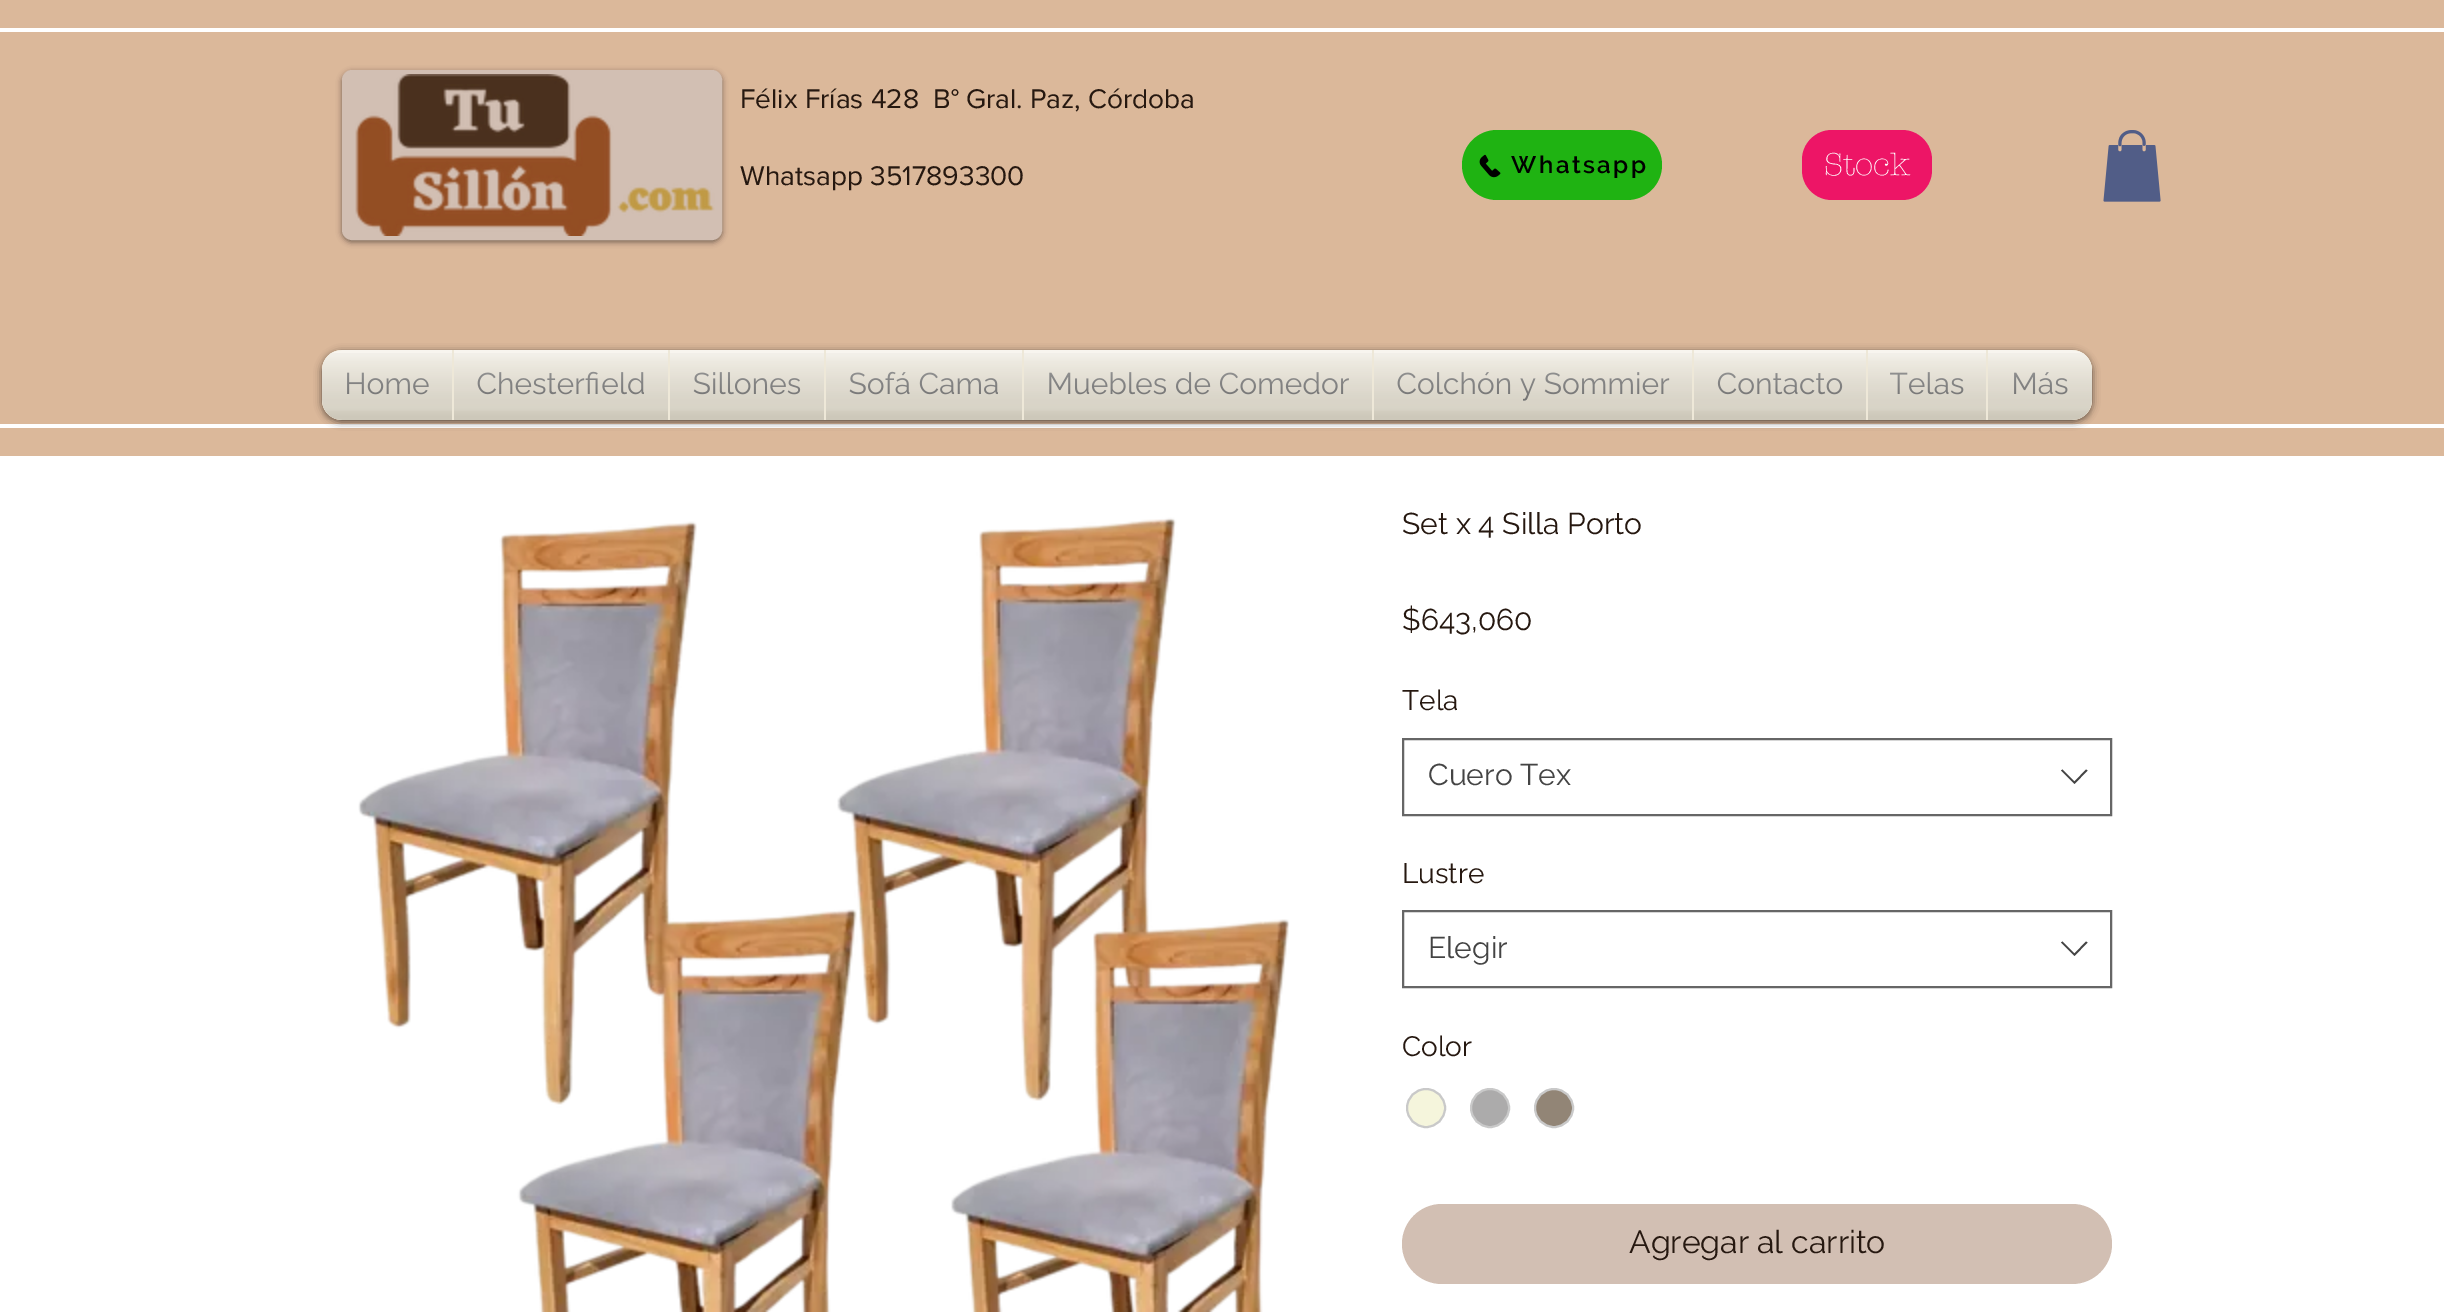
%!PS
<< /PageSize [2444 1312] /PageUsesTransparency true >> setpagedevice
/m/moveto load def
/l/rlineto load def
/c/rcurveto load def
/z/closepath load def
/f/fill load def
/s/stroke load def
/q/gsave load def
/Q_/grestore load def
/w/setlinewidth load def
/C { dup -16 bitshift 255 div exch dup -8 bitshift 255 and 255 div exch 255 and 255 div setrgbcolor } def
/F { [ exch dup neg 0 0 3 -1 roll 0 0 ] selectfont } def
/T { moveto show } def
/R { rectfill } def
/A { dup .setfillconstantalpha .setstrokeconstantalpha } def
/O { newpath 0 360 arc closepath } def
/Q { 5 dict begin { /r /h /w /y /x } { exch def } forall
  x r add y moveto x w add y 2 copy h add r arct x w add y h add x 1 index r arct
  x y h add x y r arct x y 2 copy exch w add exch r arct closepath end } def
/S { 12 dict begin { /a /b /q /h /w /y /x } { exch def } forall gsave /was 0 def
  9 -2 -9 { dup b mul 4 div /e exch def 1 sub .425 mul 2.718 exch exp 1 add a .99 .min exch div /now exch def
    1 1 now sub 1 was sub div sub A /was now def
    w h .min e 2 mul add 0 gt { x e sub y e sub w e 2 mul add h e 2 mul add
      q e add b .6 mul add w h .min 2 div e add .min 0 .max Q fill } if } for grestore end } def
/I { 5 dict begin { /h /w /y /x /name } { exch def } forall
  gsave x y translate w h scale
  w h 8 [w 0 0 h 0 0] name (r) file false 3 colorimage grestore end } def
0 .pushpdf14devicefilter
0 1312 translate 1 -1 scale
4 setmiterlimit
16#FFFFFF C
0 0 2444 1312 R
16#DBB89A C
0 0 2444 456 R
16#FFFFFF C
0 28 2444 4 R
0 424 2444 4 R
16#000000 C
342 72 380 170 10 3 .5 S
16#D2BFB3 C
344 72 376 166 8 Q q f Q_
4 w
s
(1.rgb) 355 74 360 162 I
/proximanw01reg-Regular 28 F
16#261810 C
(Félix Frías 428) 740 108 T
(B° Gral. Paz, Córdoba) 933 108 T
(Whatsapp 3517893300) 740 185 T
16#1FB312 C
1462 130 200 70 35 Q f
(2.rgb) 1479 154 22 24 I
/Raleway-SemiBold 24 F
16#000000 C
1511 173 m 2.5 0 (Whatsapp) ashow
16#ED1566 C
1802 130 130 70 30 Q f
/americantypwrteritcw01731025-Light 32 F
16#FFFFFF C
(Stock) 1824 175 T
(3.rgb) 2103 130 58 72 I
16#000000 C
322 352 1770 70 20 4 .6 S
(4.rgb) 322 350 1770 65 I
(5.rgb) 322 359 1770 61 I
16#EEE8D8 C
342 350 m 110 0 l 0 70 l -110 0 l -11 0 -20 -9 -20 -20 c 0 -30 l 0 -11 9 -20 20 -20 c z f
/Raleway-Regular 30 F
16#696969 C
(Home) 344 394 T
(6.rgb) 322 350 130 61 I
(7.rgb) 322 353 130 67 I
16#EEE8D8 C
452 350 1534 70 R
16#696969 C
(Chesterfield) 476 394 T
(8.rgb) 454 350 214 61 I
(9.rgb) 454 353 214 67 I
(Sillones) 693 394 T
(10.rgb) 670 350 154 61 I
(11.rgb) 670 353 154 67 I
(Sofá Cama) 849 394 T
(12.rgb) 826 350 196 61 I
(13.rgb) 826 353 196 67 I
(Muebles de Comedor) 1047 394 T
(14.rgb) 1024 350 348 61 I
(15.rgb) 1024 353 348 67 I
(Colchón y Sommier) 1396 394 T
(16.rgb) 1374 350 318 61 I
(17.rgb) 1374 353 318 67 I
(Contacto) 1717 394 T
(18.rgb) 1694 350 172 61 I
(19.rgb) 1694 353 172 67 I
(Telas) 1890 394 T
(20.rgb) 1868 350 118 61 I
(21.rgb) 1868 353 118 67 I
16#EEE8D8 C
1986 350 m 86 0 l 11 0 20 9 20 20 c 0 30 l 0 11 -9 20 -20 20 c -86 0 l z f
16#696969 C
(Más) 2011 394 T
(22.rgb) 1988 350 104 61 I
(23.rgb) 1988 353 104 67 I
(24.rgb) 358 517 932 795 I
16#261810 C
(Set x 4 Silla Porto) 1402 534 T
($643,060) 1402 630 T
/Raleway-Regular 28 F
(Tela) 1402 710 T
16#666666 C
2 w
1403 739 708 76 rectstroke
/Raleway-Regular 30 F
16#444444 C
(Cuero Tex) 1428 785 T
2086 769.5 m 1.5 1 l -13 13.5 l -13.5 -13.5 l 1.5 -1 l 12 12 l z eofill
/Raleway-Regular 28 F
16#261810 C
(Lustre) 1402 883 T
16#666666 C
1403 911 708 76 rectstroke
/Raleway-Regular 30 F
16#444444 C
(Elegir) 1428 958 T
2086 941.5 m 1.5 1 l -13 13.5 l -13.5 -13.5 l 1.5 -1 l 12 12 l z eofill
/Raleway-Regular 28 F
16#261810 C
(Color) 1402 1056 T
16#F5F5DC C
1426 1108 19 O q f Q_
16#C9C9C9 C
s
16#ACABAB C
1490 1108 19 O q f Q_
16#C9C9C9 C
s
16#928576 C
1554 1108 19 O q f Q_
16#C9C9C9 C
s
16#D2BFB3 C
1402 1204 710 80 40 Q f
/Raleway-Regular 32 F
16#261810 C
(Agregar al carrito) 1629 1253 T
.poppdf14devicefilter showpage
